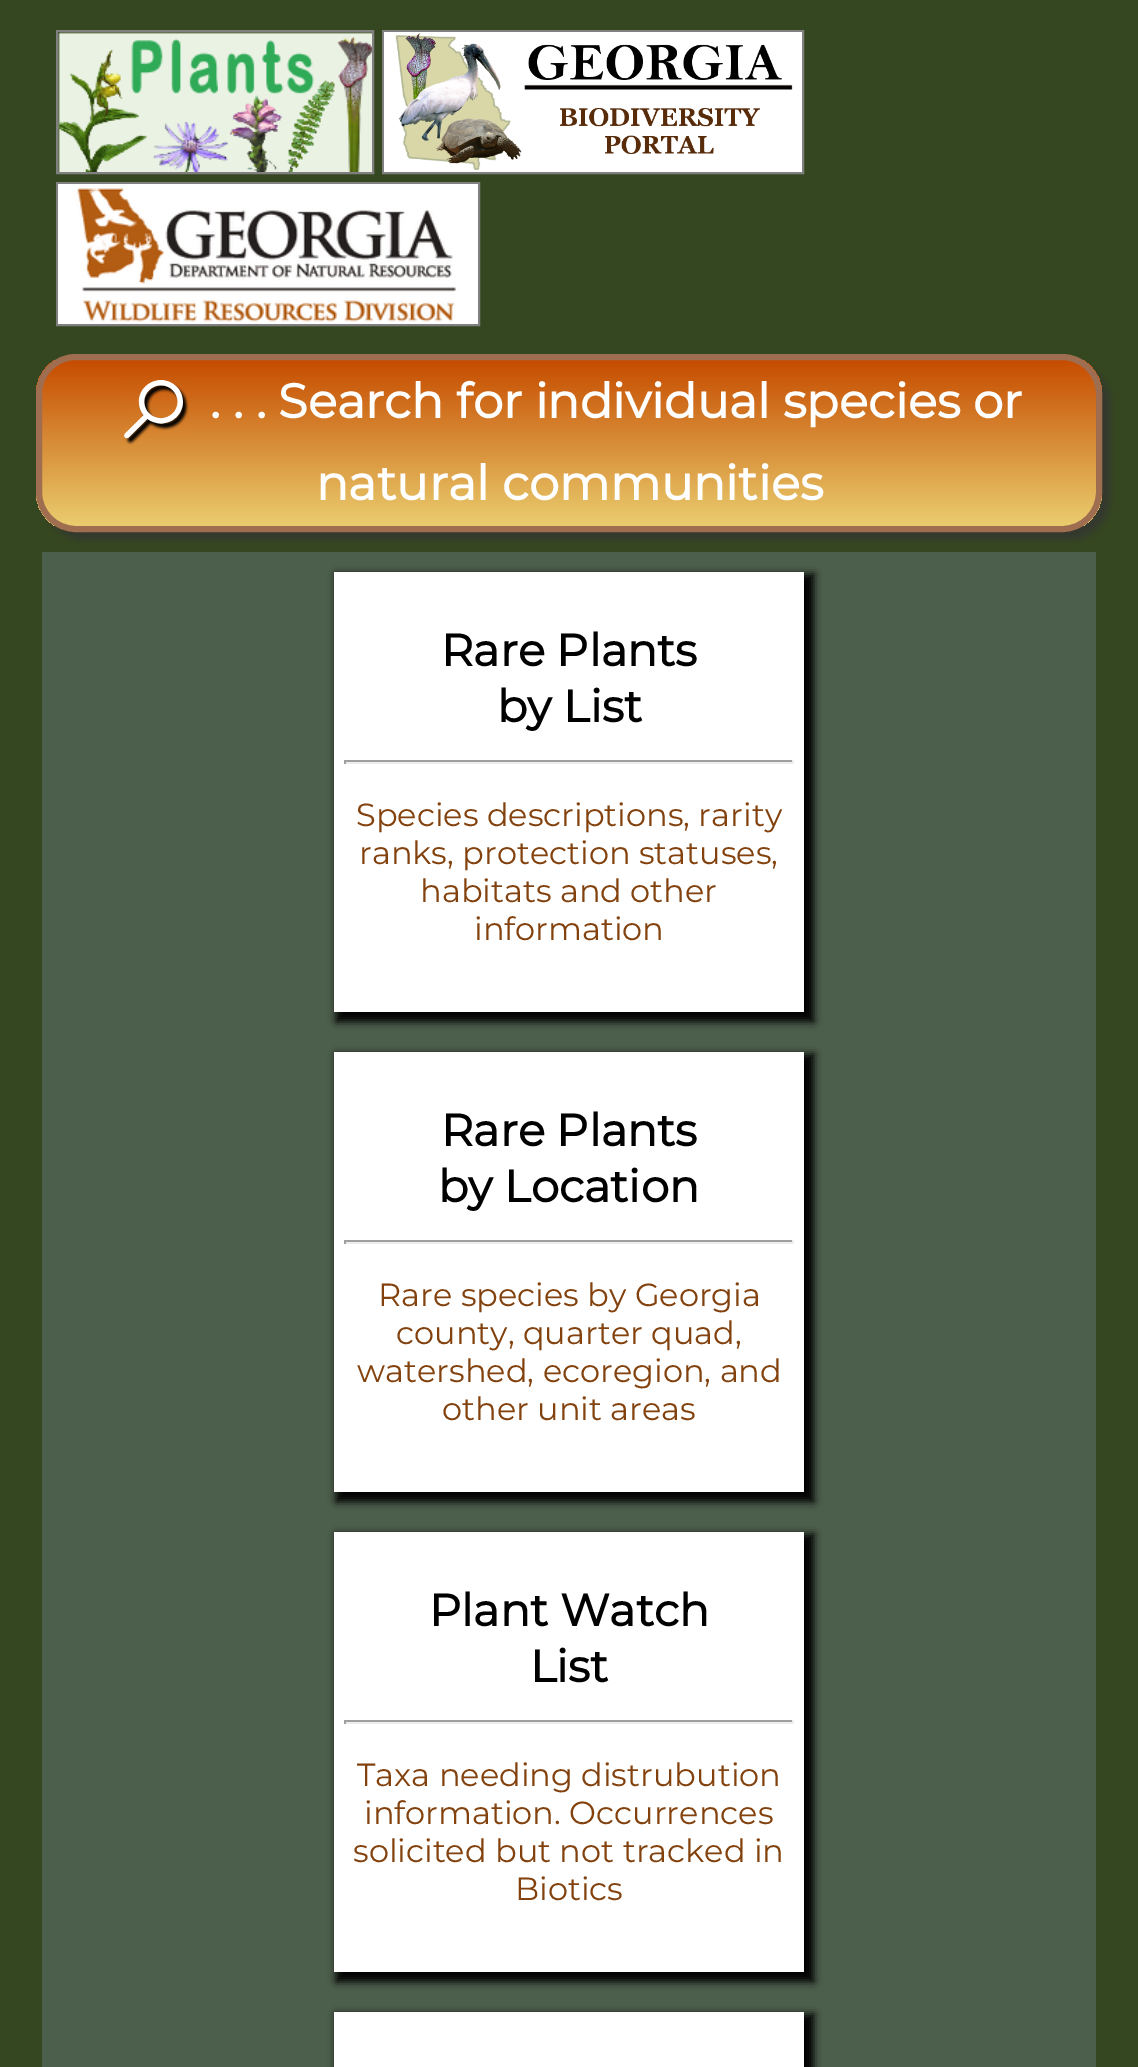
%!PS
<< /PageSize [1138 2067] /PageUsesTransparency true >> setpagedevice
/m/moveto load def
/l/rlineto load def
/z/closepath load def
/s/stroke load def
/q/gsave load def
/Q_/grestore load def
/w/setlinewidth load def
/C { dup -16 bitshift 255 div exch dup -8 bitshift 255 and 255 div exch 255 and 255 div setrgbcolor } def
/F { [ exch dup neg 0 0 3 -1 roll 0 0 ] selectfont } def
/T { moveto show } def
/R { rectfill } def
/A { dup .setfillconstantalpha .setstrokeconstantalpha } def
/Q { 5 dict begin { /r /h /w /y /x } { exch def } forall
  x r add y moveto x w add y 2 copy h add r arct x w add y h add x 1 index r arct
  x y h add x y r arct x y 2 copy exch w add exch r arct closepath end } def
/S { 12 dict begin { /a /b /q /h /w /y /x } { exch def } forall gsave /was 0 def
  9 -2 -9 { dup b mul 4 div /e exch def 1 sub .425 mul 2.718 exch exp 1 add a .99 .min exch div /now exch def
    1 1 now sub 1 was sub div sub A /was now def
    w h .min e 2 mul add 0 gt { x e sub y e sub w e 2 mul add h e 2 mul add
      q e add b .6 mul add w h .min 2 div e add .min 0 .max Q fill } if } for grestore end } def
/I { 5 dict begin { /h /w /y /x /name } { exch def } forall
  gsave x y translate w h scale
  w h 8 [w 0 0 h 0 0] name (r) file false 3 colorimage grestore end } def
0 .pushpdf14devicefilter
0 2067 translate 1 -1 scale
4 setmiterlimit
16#354720 C
0 0 1138 2067 R
16#808080 C
2 w
57 31 316 142 rectstroke
383 31 420 142 rectstroke
(1.rgb) 58 32 314 140 I
(2.rgb) 384 32 418 140 I
57 183 422 142 rectstroke
(3.rgb) 58 184 420 140 I
16#323232 C
44 362 1066 178 40 4 .75 S
q
36 354 1066 178 40 Q clip newpath
q 36 360 m 1066 0 l 0 166 l -1066 0 l z clip newpath
<< /ShadingType 2 /ColorSpace /DeviceRGB /Coords [569 360 569 526] /Extend [true true] /Function << /FunctionType 2 /Domain [0 1] /C0 [.776 .298 0] /C1 [.918 .804 .431] /N 1 >> >> shfill Q_
Q_
16#9F6D4F C
6 w
39 357 1060 172 37 Q s
(4.rgb) 124 380 65 65 I
/Montserrat-Bold 48 F
16#FFFFFF C
(. . . Search for individual species or) 210 418 T
(natural communities) 316 500 T
16#4C5F4C C
42 552 1054 1515 R
16#FFFFFF C
334 572 470 440 R
q
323 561 m 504 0 l 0 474 l -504 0 l z 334 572 m 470 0 l 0 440 l -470 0 l z eoclip newpath
16#000000 C
336 574 478 448 0 4 1 S
Q_
/Montserrat-Bold 44.75 F
16#000000 C
(Rare Plants) 441 666 T
(by List) 497 722 T
16#9F9F9F C
344 760 450 2 R
16#EEEEEE C
792 760 2 4 R
344 762 450 2 R
16#9F9F9F C
344 760 2 4 R
/Montserrat-Thin 32 F
16#82410D C
(Species descriptions, rarity) 356 826 T
(ranks, protection statuses,) 359 864 T
(habitats and other) 420 902 T
(information) 474 940 T
16#FFFFFF C
334 1052 470 440 R
q
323 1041 m 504 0 l 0 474 l -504 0 l z 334 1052 m 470 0 l 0 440 l -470 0 l z eoclip newpath
16#000000 C
336 1054 478 448 0 4 1 S
Q_
/Montserrat-Bold 44.75 F
16#000000 C
(Rare Plants) 441 1146 T
(by Location) 438 1202 T
16#9F9F9F C
344 1240 450 2 R
16#EEEEEE C
792 1240 2 4 R
344 1242 450 2 R
16#9F9F9F C
344 1240 2 4 R
/Montserrat-Thin 32 F
16#82410D C
(Rare species by Georgia) 378 1306 T
(county, quarter quad,) 396 1344 T
(watershed, ecoregion, and) 357 1382 T
(other unit areas) 442 1420 T
16#FFFFFF C
334 1532 470 440 R
q
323 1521 m 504 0 l 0 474 l -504 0 l z 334 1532 m 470 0 l 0 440 l -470 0 l z eoclip newpath
16#000000 C
336 1534 478 448 0 4 1 S
Q_
/Montserrat-Bold 44.75 F
16#000000 C
(Plant Watch) 429 1626 T
(List) 530 1682 T
16#9F9F9F C
344 1720 450 2 R
16#EEEEEE C
792 1720 2 4 R
344 1722 450 2 R
16#9F9F9F C
344 1720 2 4 R
/Montserrat-Thin 32 F
16#82410D C
(Taxa needing distrubution) 357 1786 T
(information. Occurrences) 364 1824 T
(solicited but not tracked in) 353 1862 T
(Biotics) 515 1900 T
16#FFFFFF C
334 2012 470 55 R
q
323 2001 m 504 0 l 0 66 l -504 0 l z 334 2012 m 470 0 l 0 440 l -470 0 l z eoclip newpath
16#000000 C
336 2014 478 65 0 4 1 S
Q_
.poppdf14devicefilter showpage
